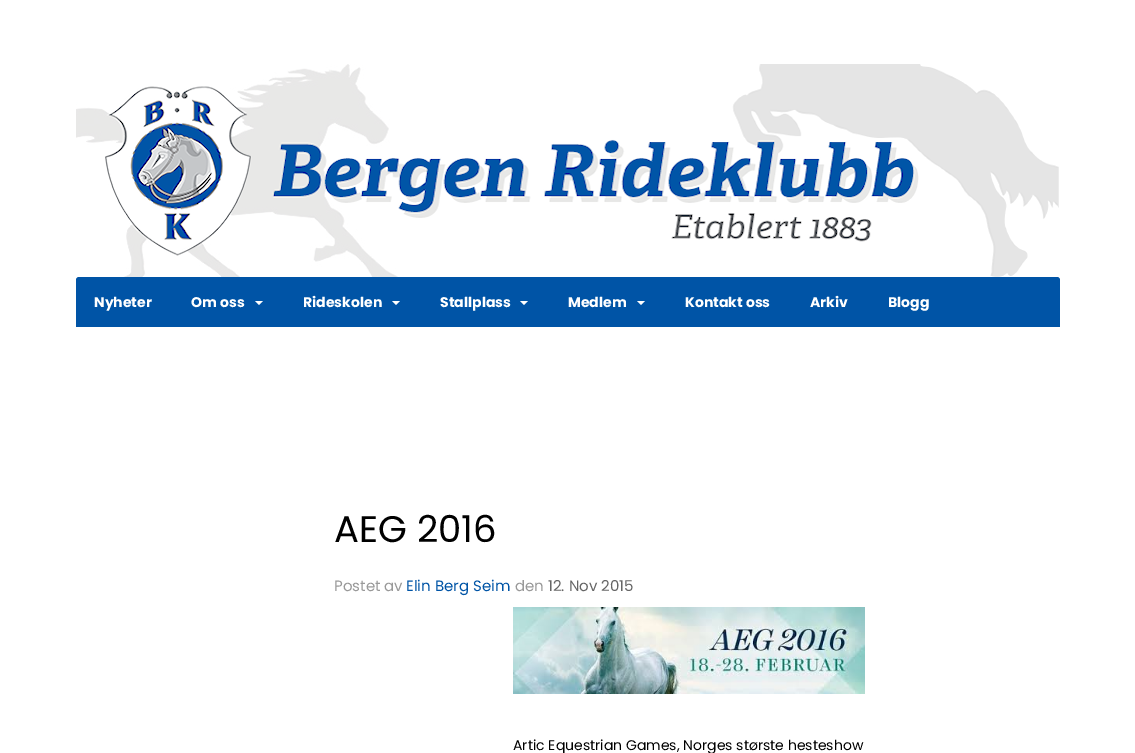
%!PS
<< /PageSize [1135 753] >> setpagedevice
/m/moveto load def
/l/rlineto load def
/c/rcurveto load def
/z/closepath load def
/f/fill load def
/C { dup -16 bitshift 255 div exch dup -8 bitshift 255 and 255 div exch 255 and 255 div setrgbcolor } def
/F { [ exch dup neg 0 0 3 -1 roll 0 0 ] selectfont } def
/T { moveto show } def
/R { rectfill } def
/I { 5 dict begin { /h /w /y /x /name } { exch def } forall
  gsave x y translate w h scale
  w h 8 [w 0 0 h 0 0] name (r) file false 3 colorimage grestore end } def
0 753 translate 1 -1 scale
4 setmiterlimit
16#FFFFFF C
0 0 1135 753 R
(1.rgb) 76 64 983 213 I
16#0054A6 C
79 277 m 978 0 l 1.5 0 3 1.5 3 3 c 0 47 l -984 0 l 0 -47 l 0 -1.5 1.5 -3 3 -3 c z f
/Poppins-Bold 14 F
16#FFFFFF C
(Nyheter) 94 307 T
(Om oss) 191 307 T
255 301 m 8 0 l -4 4 l z f
(Rideskolen) 303 307 T
392 301 m 8 0 l -4 4 l z f
(Stallplass) 440 307 T
520 301 m 8 0 l -4 4 l z f
(Medlem) 568 307 T
637 301 m 8 0 l -4 4 l z f
(Kontakt oss) 685 307 T
(Arkiv) 810 307 T
(Blogg) 888 307 T
/Poppins-Regular 37 F
16#000000 C
(AEG 2016) 334 542 T
/Poppins-Regular 15 F
16#999999 C
(Postet av) 334 591 T
16#0054A6 C
(Elin Berg Seim) 406 591 T
16#999999 C
(den) 515 591 T
16#666666 C
(12. Nov 2015) 548 591 T
(2.rgb) 513 607 352 87 I
/Poppins-Regular 14 F
16#000000 C
(Artic Equestrian Games, Norges største hesteshow) 513 750 T
showpage
